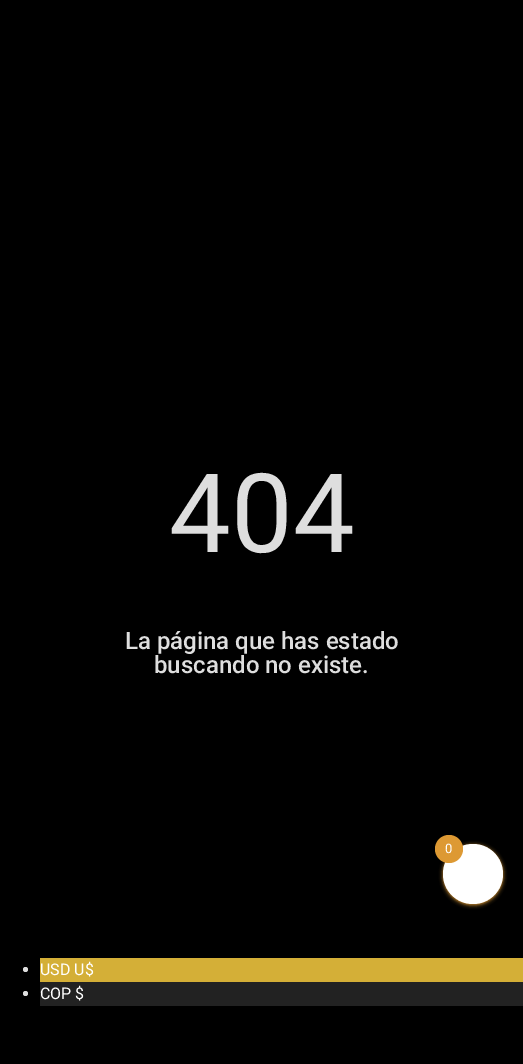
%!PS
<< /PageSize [523 1064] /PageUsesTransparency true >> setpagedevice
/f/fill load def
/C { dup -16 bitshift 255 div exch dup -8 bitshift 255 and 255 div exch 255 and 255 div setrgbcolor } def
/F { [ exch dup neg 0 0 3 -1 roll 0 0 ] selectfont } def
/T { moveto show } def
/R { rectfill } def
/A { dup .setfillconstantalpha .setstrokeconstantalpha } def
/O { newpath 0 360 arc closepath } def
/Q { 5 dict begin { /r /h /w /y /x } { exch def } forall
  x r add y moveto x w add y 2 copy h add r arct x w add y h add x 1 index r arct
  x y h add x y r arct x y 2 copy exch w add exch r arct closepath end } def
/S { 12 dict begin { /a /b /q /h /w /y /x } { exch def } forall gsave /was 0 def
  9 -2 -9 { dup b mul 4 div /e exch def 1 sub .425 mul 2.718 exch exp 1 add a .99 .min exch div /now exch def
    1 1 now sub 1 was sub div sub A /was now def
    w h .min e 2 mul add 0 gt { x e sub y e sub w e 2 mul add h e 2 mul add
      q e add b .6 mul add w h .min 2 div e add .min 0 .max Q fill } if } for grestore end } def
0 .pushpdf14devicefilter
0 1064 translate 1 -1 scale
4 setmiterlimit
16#000000 C
0 0 523 1064 R
/Roboto-Regular 110 F
16#DEDEDE C
(404) 169 552 T
/Roboto-Medium 24 F
(La página que has estado) 125 649 T
(buscando no existe.) 154 673 T
16#DD9933 C
443 845 60 60 30 2 1 S
16#FFFFFF C
473 874 30 O f
16#DD9933 C
449 849 14 O f
/Roboto-Regular 13 F
16#FFFFFF C
(0) 445 853 T
16#D4AF37 C
40 958 483 24 R
16#DEDEDE C
25.5 969.5 2.5 O f
/Roboto-Regular 16 F
16#FFFFFF C
(USD U$) 40 975 T
16#222222 C
40 982 483 24 R
16#DEDEDE C
25.5 993.5 2.5 O f
16#FFFFFF C
(COP $) 40 999 T
.poppdf14devicefilter showpage
